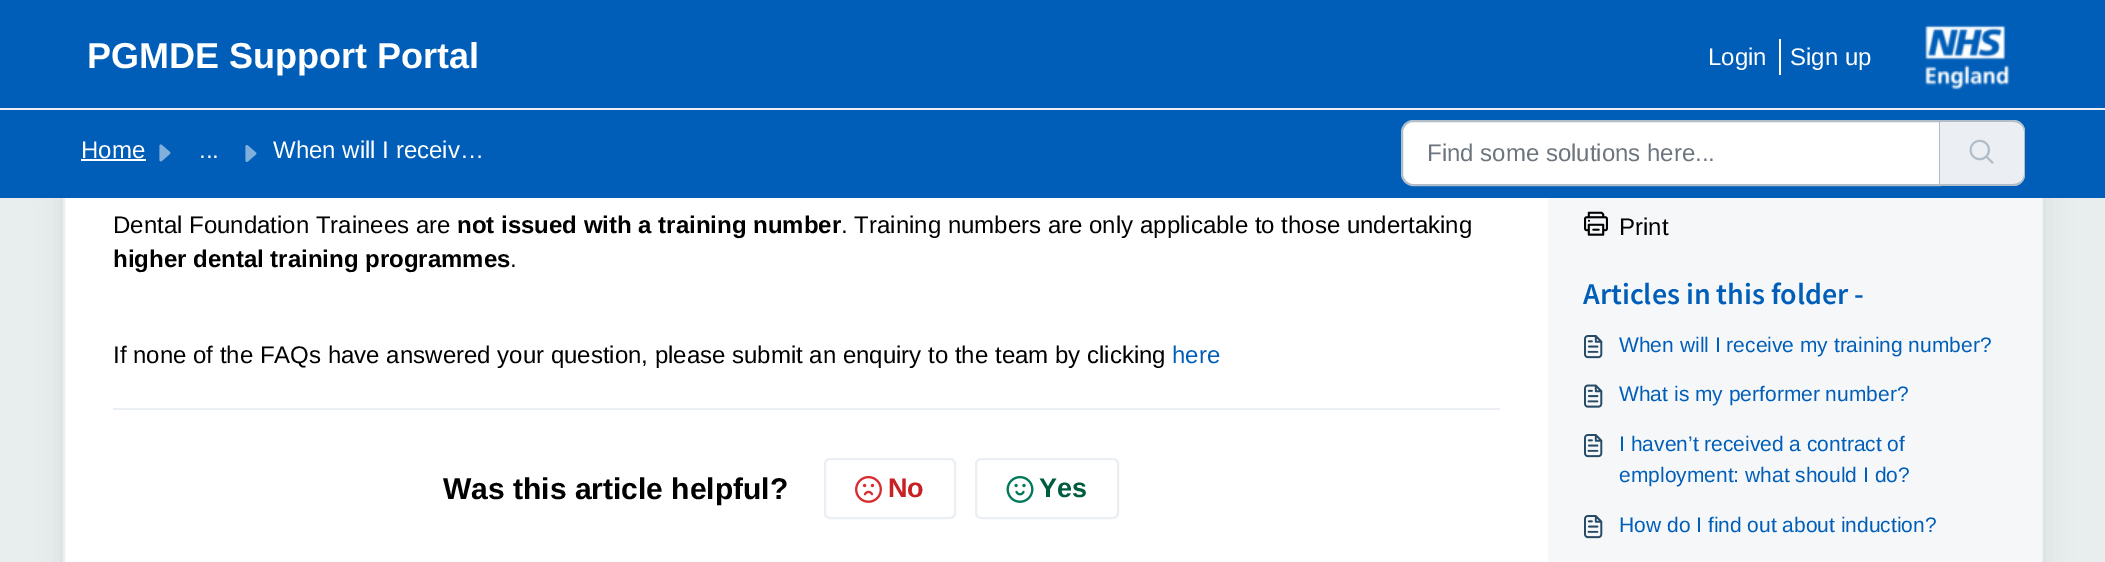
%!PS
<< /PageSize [2105 562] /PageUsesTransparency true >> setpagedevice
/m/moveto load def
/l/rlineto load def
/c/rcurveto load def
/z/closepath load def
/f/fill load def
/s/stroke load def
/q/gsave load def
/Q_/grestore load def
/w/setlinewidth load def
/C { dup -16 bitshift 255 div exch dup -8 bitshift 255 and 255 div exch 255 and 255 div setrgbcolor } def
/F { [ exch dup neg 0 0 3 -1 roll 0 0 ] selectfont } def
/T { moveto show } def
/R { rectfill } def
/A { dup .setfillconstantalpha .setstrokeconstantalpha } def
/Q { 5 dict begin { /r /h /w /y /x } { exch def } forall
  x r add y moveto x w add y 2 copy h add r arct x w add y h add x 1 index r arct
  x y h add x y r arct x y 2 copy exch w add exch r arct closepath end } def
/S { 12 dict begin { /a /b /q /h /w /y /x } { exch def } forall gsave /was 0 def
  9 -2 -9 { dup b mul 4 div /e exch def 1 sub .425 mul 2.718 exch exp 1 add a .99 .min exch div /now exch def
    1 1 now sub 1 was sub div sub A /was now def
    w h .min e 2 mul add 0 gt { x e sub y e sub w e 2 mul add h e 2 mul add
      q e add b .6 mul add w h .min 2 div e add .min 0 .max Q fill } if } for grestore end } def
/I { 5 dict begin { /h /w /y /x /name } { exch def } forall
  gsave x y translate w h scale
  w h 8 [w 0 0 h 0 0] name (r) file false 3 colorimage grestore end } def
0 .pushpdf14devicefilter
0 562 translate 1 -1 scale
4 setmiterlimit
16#E8EDEE C
0 0 2105 562 R
16#005EB8 C
0 0 2105 108 R
16#EBEFF3 C
0 108 2105 2 R
/LiberationSans-Bold 36 F
16#FFFFFF C
(PGMDE Support Portal) 87 68 T
/LiberationSans-Regular 24 F
(Login) 1708 65 T
1779 39 2 36 R
(Sign up) 1790 65 T
(1.rgb) 1925 25 85 65 I
16#27313A C
63 180 1980 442 18 14 .1 S
16#FFFFFF C
65 198 1483 364 R
16#EBEFF3 C
2 w
64 172 1978 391 rectstroke
16#005EB8 C
0 110 2105 88 R
16#FFFFFF C
(Home) 81 158 T
81 159 65 2 R
(2.rgb) 159 144 12 18 I
(...) 199 158 T
(3.rgb) 245 145 12 17 I
(When will I receiv…) 273 158 T
1413 121 m 527 0 l 0 64 l -527 0 l -6 0 -11 -5 -11 -11 c 0 -42 l 0 -6 5 -11 11 -11 c z q f Q_
16#B1BDC8 C
s
16#6C757D C
(Find some solutions here...) 1427 161 T
16#EBEFF3 C
1940 120 m 73 0 l 6.5 0 12 5.5 12 12 c 0 42 l 0 6.5 -5.5 12 -12 12 c -73 0 l z f
16#B1BDC8 C
1940 120 m 73 0 l 7 0 12 5 12 12 c 0 42 l 0 7 -5 12 -12 12 c -73 0 l z 1940 122 m 73 0 l 6 0 11 4 11 10 c 0 42 l 0 6 -5 10 -11 10 c -73 0 l z eofill
(4.rgb) 1969 139 25 25 I
16#000000 C
(Dental Foundation Trainees are) 113 233 T
/LiberationSans-Bold 24 F
(not issued with a training number) 457 233 T
/LiberationSans-Regular 24 F
(. Training numbers are only applicable to those undertaking) 841 233 T
/LiberationSans-Bold 24 F
(higher dental training programmes) 113 267 T
/LiberationSans-Regular 24 F
(.) 510 267 T
(If none of the FAQs have answered your question, please submit an enquiry to the team by clicking) 113 363 T
16#005EB8 C
(here) 1172 363 T
16#EBEFF3 C
113 408 1387 2 R
/LiberationSans-Bold 30 F
16#000000 C
(Was this article helpful?) 443 499 T
16#EBEFF3 C
825 459 130 59 5 Q s
(5.rgb) 855 475 27 28 I
/LiberationSans-Bold 27 F
16#C82124 C
(No) 888 497 T
16#EBEFF3 C
976 459 142 59 5 Q s
(6.rgb) 1006 475 28 28 I
16#005C3F C
(Yes) 1039 497 T
16#F5F7F9 C
1548 198 494 364 R
(7.rgb) 1584 211 24 25 I
/LiberationSans-Regular 24 F
16#000000 C
(Print) 1619 235 T
/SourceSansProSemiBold-SemiBold 30 F
16#005EB8 C
(Articles in this folder -) 1583 304 T
(8.rgb) 1584 335 19 24 I
/LiberationSans-Regular 21 F
(When will I receive my training number?) 1619 352 T
(9.rgb) 1584 384 19 24 I
(What is my performer number?) 1619 401 T
(8.rgb) 1584 434 19 24 I
(I haven’t received a contract of) 1619 451 T
(employment: what should I do?) 1619 482 T
(8.rgb) 1584 515 19 24 I
(How do I find out about induction?) 1619 532 T
.poppdf14devicefilter showpage
